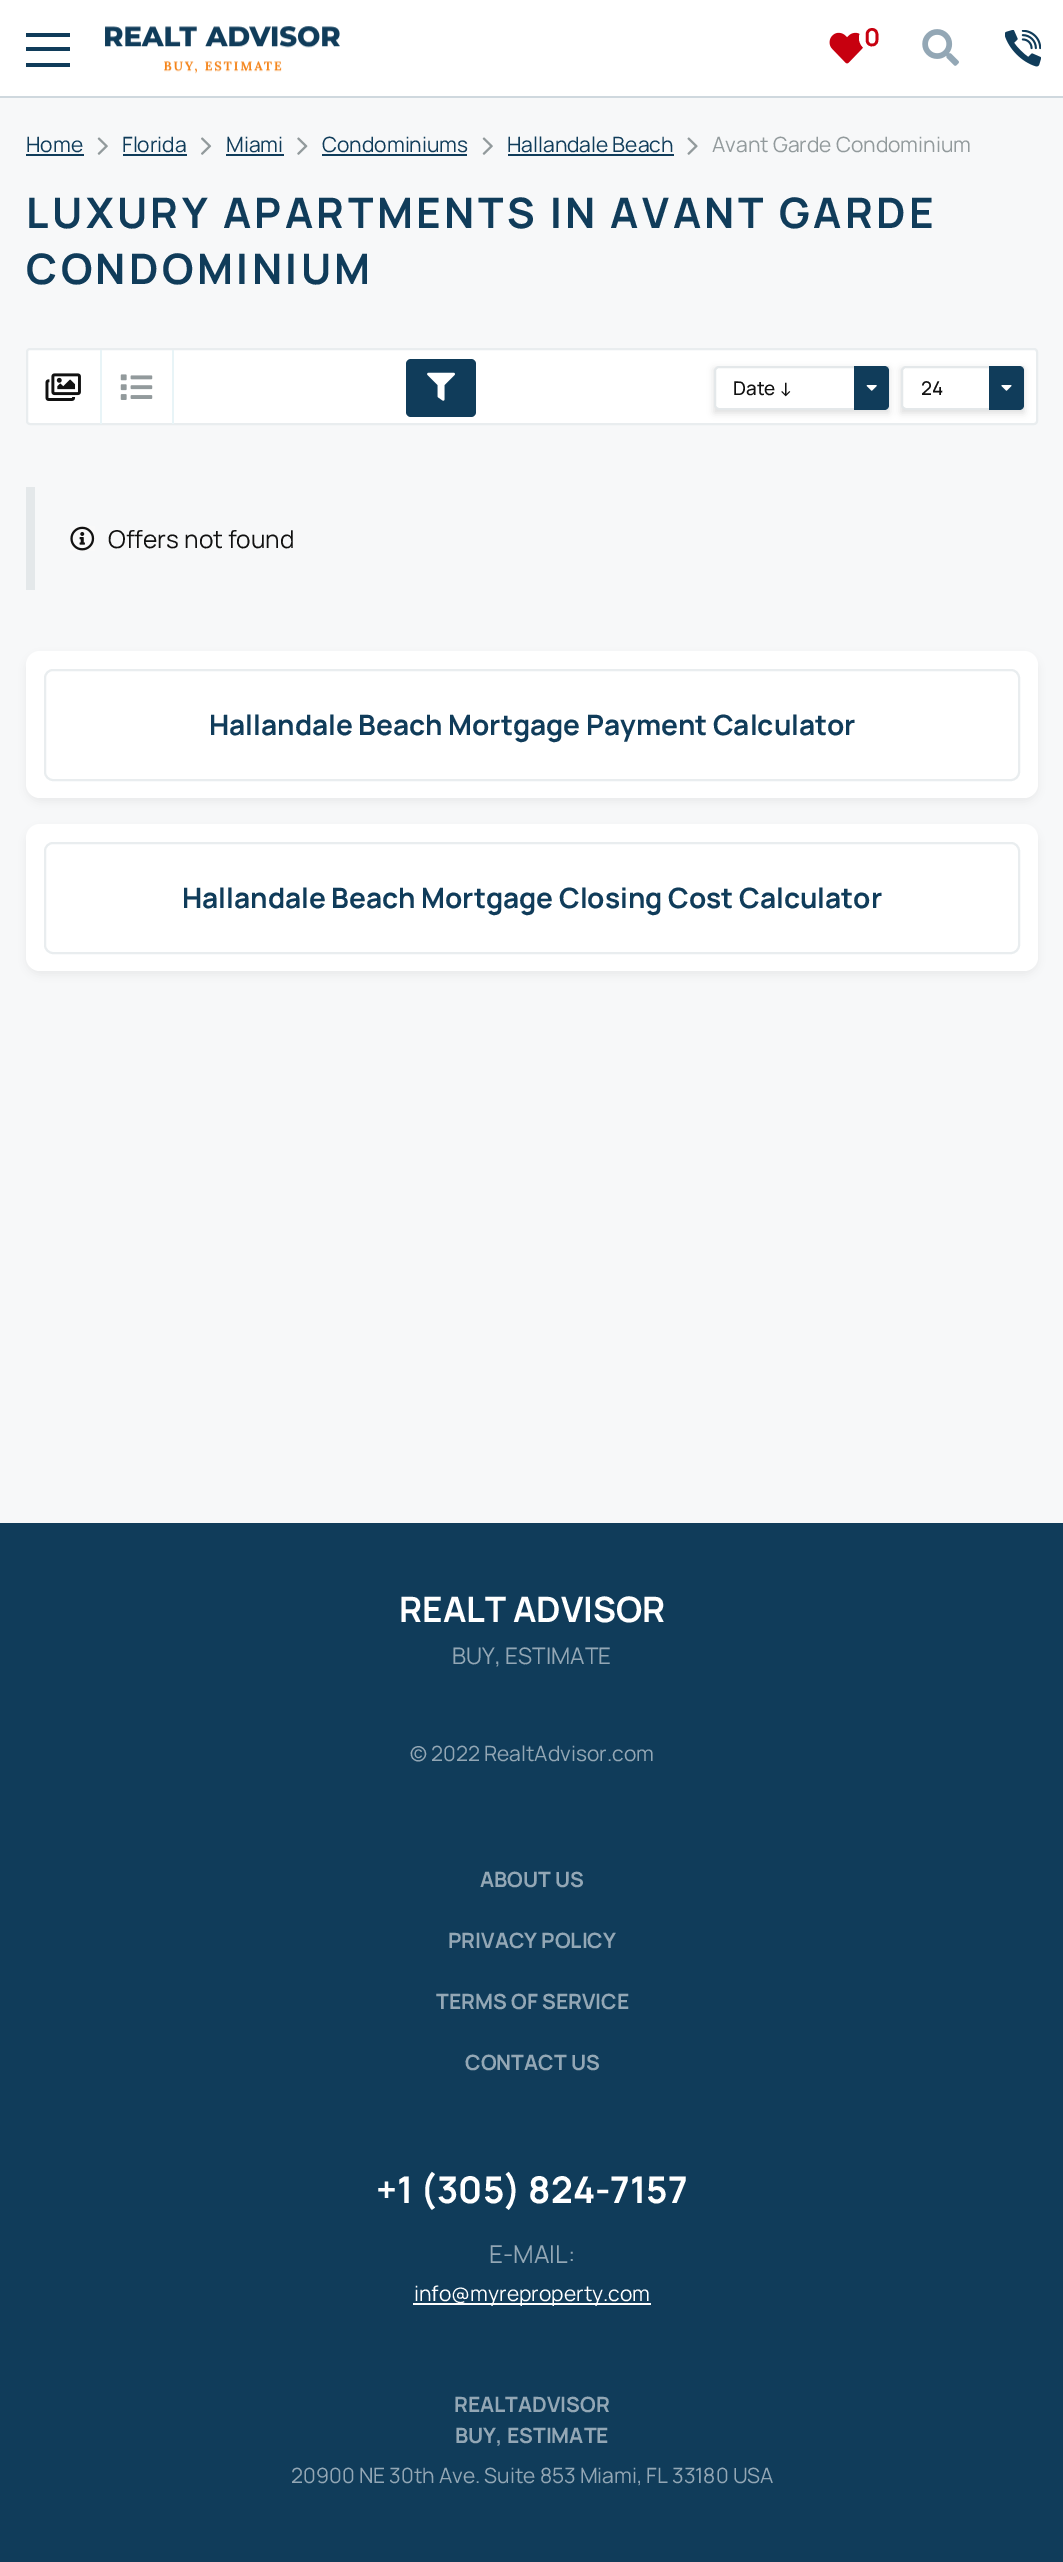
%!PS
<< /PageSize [1063 2562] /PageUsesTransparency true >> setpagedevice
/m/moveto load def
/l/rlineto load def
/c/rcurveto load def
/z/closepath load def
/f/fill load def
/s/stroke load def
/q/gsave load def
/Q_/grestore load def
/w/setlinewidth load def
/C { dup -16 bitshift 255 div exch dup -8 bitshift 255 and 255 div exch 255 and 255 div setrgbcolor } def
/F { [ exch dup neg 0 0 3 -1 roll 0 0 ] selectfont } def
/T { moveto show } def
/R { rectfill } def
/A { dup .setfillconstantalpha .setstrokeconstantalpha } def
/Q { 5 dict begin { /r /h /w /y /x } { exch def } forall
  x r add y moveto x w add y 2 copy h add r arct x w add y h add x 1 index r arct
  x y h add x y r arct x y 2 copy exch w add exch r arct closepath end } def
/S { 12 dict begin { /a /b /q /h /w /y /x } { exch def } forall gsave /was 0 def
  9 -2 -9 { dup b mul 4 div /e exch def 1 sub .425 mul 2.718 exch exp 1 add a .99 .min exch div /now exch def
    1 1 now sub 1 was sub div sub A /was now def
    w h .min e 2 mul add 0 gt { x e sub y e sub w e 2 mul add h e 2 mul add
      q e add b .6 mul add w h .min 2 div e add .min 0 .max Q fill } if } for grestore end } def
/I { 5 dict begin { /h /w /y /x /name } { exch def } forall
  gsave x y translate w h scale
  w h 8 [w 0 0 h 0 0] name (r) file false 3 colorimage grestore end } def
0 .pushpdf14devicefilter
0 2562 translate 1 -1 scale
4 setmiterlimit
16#F7F8F9 C
0 0 1063 2562 R
16#FFFFFF C
0 0 1063 96 R
16#CFD8DE C
0 96 1063 2 R
16#103C5A C
26 33 44 4 R
26 47 44 4 R
26 63 44 4 R
(1.rgb) 105 26 235 48 I
(2.rgb) 829 32 35 32 I
16#FFFFFF C
859 25 27 26 13 Q f
/Manrope-Bold 24.5 F
16#C7000F C
(0) 864 46 T
(3.rgb) 922 29 37 37 I
(4.rgb) 1005 30 36 37 I
/Manrope-Regular 21 F
16#103C5A C
(Home) 26 152 T
26 154 58 2 R
(5.rgb) 97 137 11 18 I
(Florida) 122 152 T
123 154 64 2 R
(6.rgb) 201 137 11 18 I
(Miami) 226 152 T
226 154 58 2 R
(7.rgb) 297 137 11 18 I
(Condominiums) 322 152 T
322 154 145 2 R
(5.rgb) 482 137 11 18 I
(Hallandale Beach) 507 152 T
508 154 166 2 R
(8.rgb) 687 137 11 18 I
16#929A9C C
(Avant Garde Condominium) 712 152 T
/Manrope-Bold 42 F
16#103C5A C
26 228 m 3.5 0 (LUXURY APARTMENTS IN AVANT GARDE) ashow
26 284 m 3.5 0 (CONDOMINIUM) ashow
16#FFFFFF C
27 349 1010 75 3 Q q f Q_
16#E9EDEF C
2 w
s
16#E8F4F7 C
100 350 2 74 R
(9.rgb) 45 373 36 28 I
172 350 2 74 R
(10.rgb) 120 374 33 26 I
16#103C5A C
406 359 70 58 5 Q f
(11.rgb) 427 372 28 29 I
16#000000 C
714 369 175 44 0 3.5 .12 S
16#FFFFFF C
719 367 m 169 0 l 0 42 l -169 0 l -2 0 -4 -2 -4 -4 c 0 -34 l 0 -2 2 -4 4 -4 c z q f Q_
16#E4E8EA C
s
/Manrope-Medium 19 F
16#111111 C
(Date ↓) 733 395 T
16#103C5A C
854 366 m 30 0 l 3 0 5 2 5 5 c 0 34 l 0 3 -2 5 -5 5 c -30 0 l z f
(12.rgb) 866 385 11 6 I
16#000000 C
901 369 123 44 0 3.5 .12 S
16#FFFFFF C
906 367 m 117 0 l 0 42 l -117 0 l -2 0 -4 -2 -4 -4 c 0 -34 l 0 -2 2 -4 4 -4 c z q f Q_
16#E4E8EA C
s
16#111111 C
(24) 921 395 T
16#103C5A C
989 366 m 30 0 l 3 0 5 2 5 5 c 0 34 l 0 3 -2 5 -5 5 c -30 0 l z f
(13.rgb) 1001 385 11 6 I
16#E4E8EA C
26 487 9 103 R
(14.rgb) 70 526 25 25 I
/Manrope-Regular 24.5 F
16#111111 C
(Offers not found) 108 548 T
16#000000 C
26 655 1012 147 14 4.5 .05 S
16#FFFFFF C
26 651 1012 147 14 Q f
16#E9EDEF C
45 670 974 110 8 Q s
/Manrope-Bold 28 F
16#103C5A C
(Hallandale Beach Mortgage Payment Calculator) 209 735 T
16#000000 C
26 828 1012 147 14 4.5 .05 S
16#FFFFFF C
26 824 1012 147 14 Q f
16#E9EDEF C
45 843 974 110 8 Q s
16#103C5A C
(Hallandale Beach Mortgage Closing Cost Calculator) 182 908 T
0 1523 1063 1039 R
/Manrope-Bold 35 F
16#FFFFFF C
(REALT ADVISOR) 399 1622 T
/Manrope-Regular 22.75 F
16#93A7B5 C
(BUY, ESTIMATE) 452 1664 T
/Manrope-Regular 21 F
(© 2022 RealtAdvisor.com) 410 1761 T
/Manrope-Bold 21 F
(ABOUT US) 480 1887 T
(PRIVACY POLICY) 448 1948 T
(TERMS OF SERVICE) 436 2009 T
(CONTACT US) 465 2070 T
/Manrope-Bold 36.75 F
16#FFFFFF C
(+1 \(305\) 824-7157) 376 2203 T
/Manrope-Regular 24.5 F
16#93A7B5 C
(E-MAIL:) 489 2263 T
16#FFFFFF C
413 2303 238 2 R
/Manrope-Regular 21 F
(info@myreproperty.com) 414 2301 T
/Manrope-Bold 21 F
16#93A7B5 C
(REALTADVISOR) 454 2412 T
(BUY, ESTIMATE) 455 2443 T
/Manrope-Regular 21 F
(20900 NE 30th Ave. Suite 853 Miami, FL 33180 USA) 291 2483 T
.poppdf14devicefilter showpage
